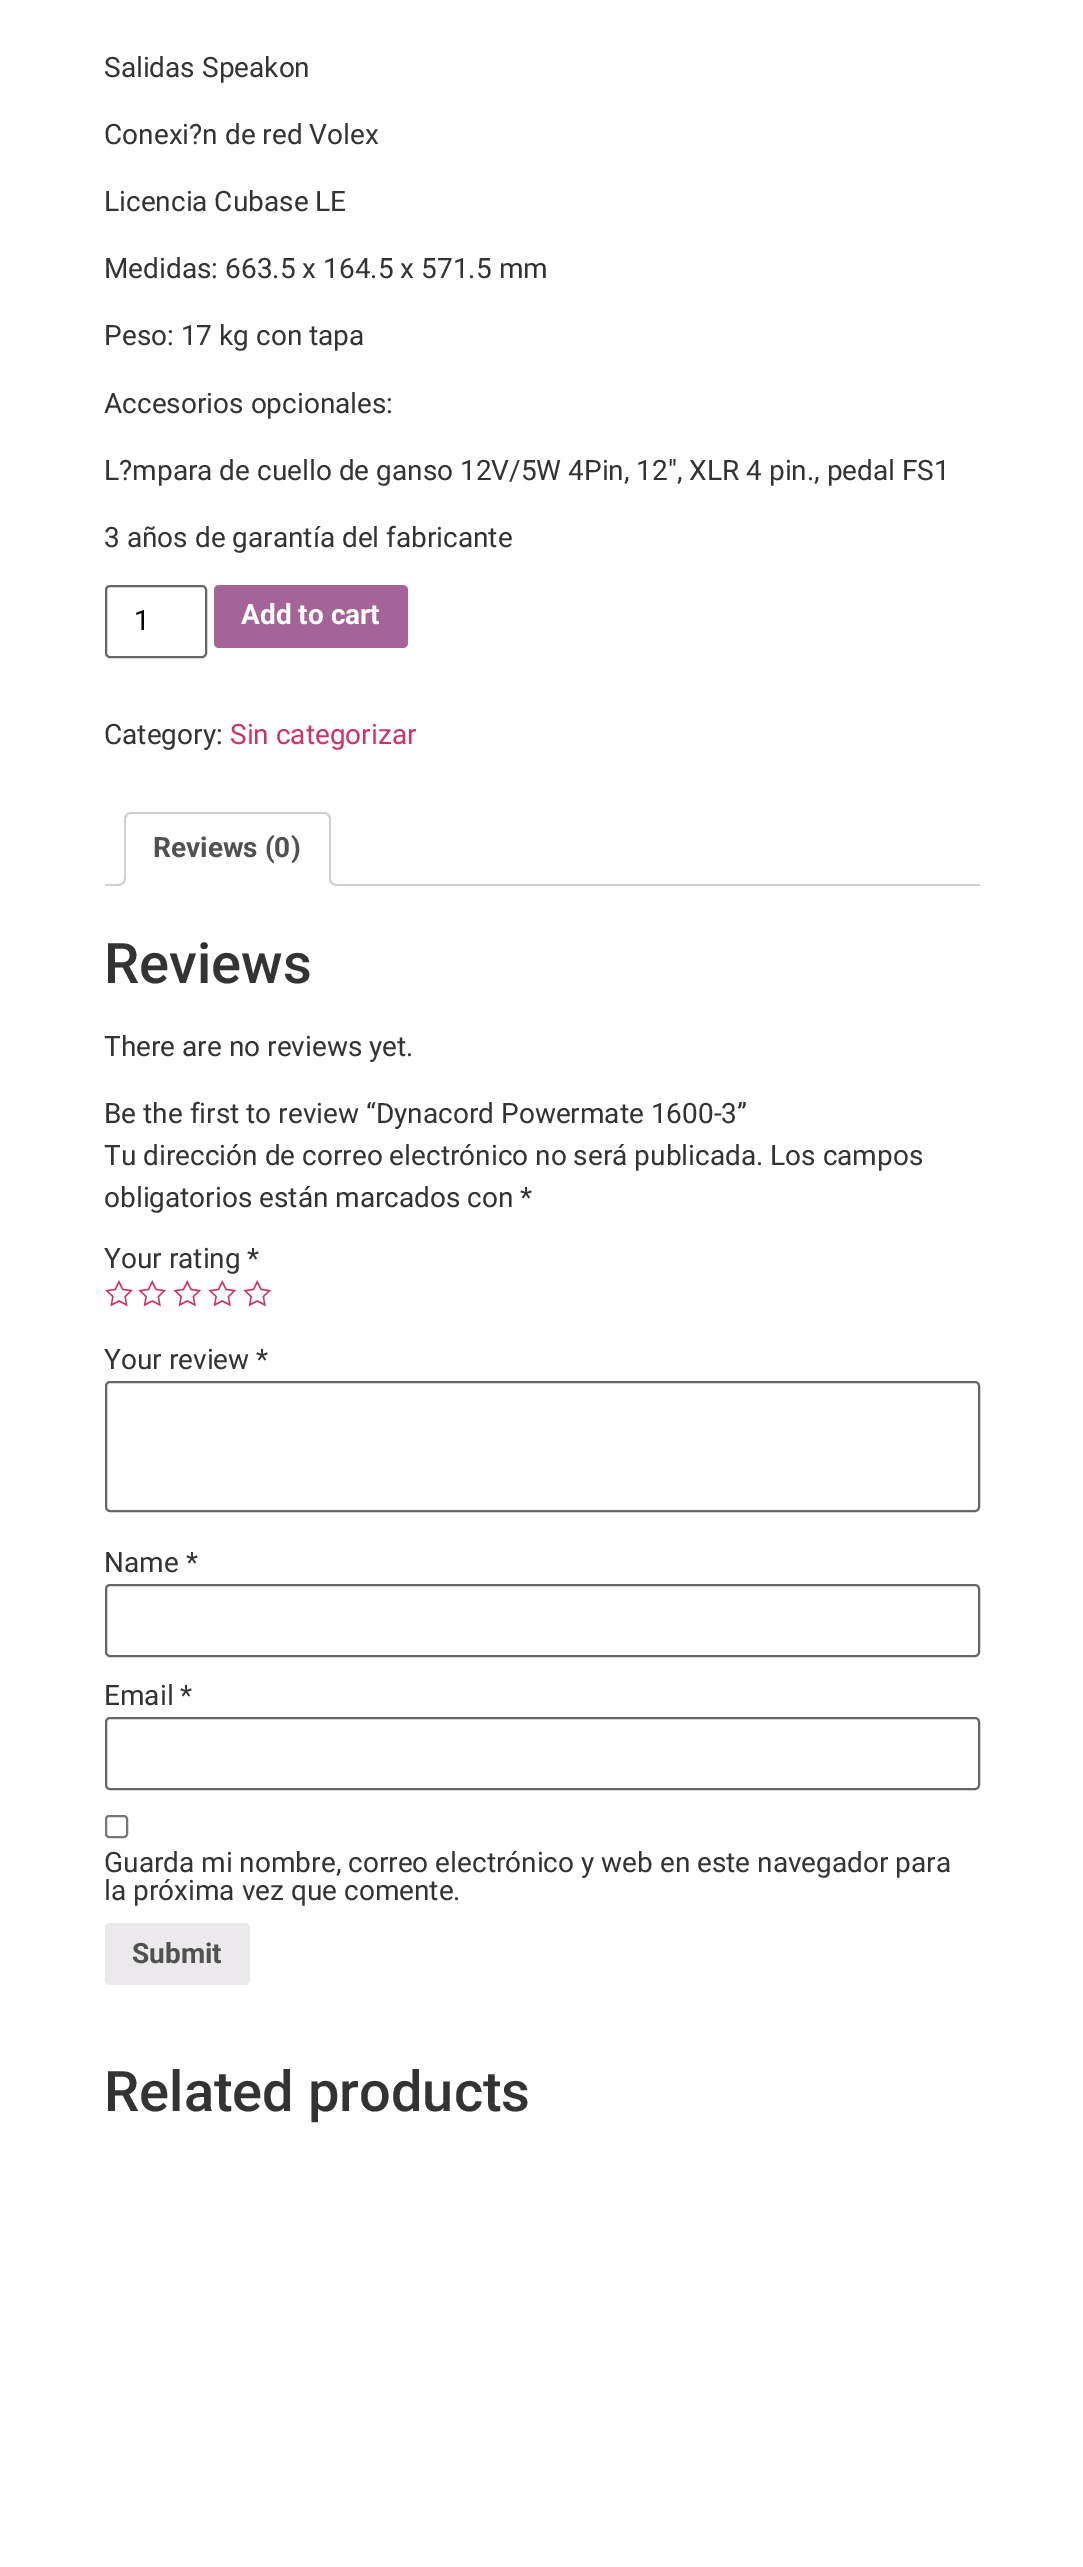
%!PS
<< /PageSize [1083 2567] >> setpagedevice
/m/moveto load def
/l/rlineto load def
/c/rcurveto load def
/z/closepath load def
/f/fill load def
/s/stroke load def
/q/gsave load def
/Q_/grestore load def
/w/setlinewidth load def
/C { dup -16 bitshift 255 div exch dup -8 bitshift 255 and 255 div exch 255 and 255 div setrgbcolor } def
/F { [ exch dup neg 0 0 3 -1 roll 0 0 ] selectfont } def
/T { moveto show } def
/R { rectfill } def
/Q { 5 dict begin { /r /h /w /y /x } { exch def } forall
  x r add y moveto x w add y 2 copy h add r arct x w add y h add x 1 index r arct
  x y h add x y r arct x y 2 copy exch w add exch r arct closepath end } def
/I { 5 dict begin { /h /w /y /x /name } { exch def } forall
  gsave x y translate w h scale
  w h 8 [w 0 0 h 0 0] name (r) file false 3 colorimage grestore end } def
0 2567 translate 1 -1 scale
4 setmiterlimit
16#FFFFFF C
0 0 1083 2567 R
/Roboto-Regular 28 F
16#333333 C
(Salidas Speakon) 104 77 T
(Conexi?n de red Volex) 104 144 T
(Licencia Cubase LE) 104 211 T
(Medidas: 663.5 x 164.5 x 571.5 mm) 104 278 T
(Peso: 17 kg con tapa) 104 345 T
(Accesorios opcionales:) 104 413 T
(L?mpara de cuello de ganso 12V/5W 4Pin, 12", XLR 4 pin., pedal FS1) 104 480 T
(3 años de garantía del fabricante) 104 547 T
16#666666 C
2 w
106 586 100 71 4 Q s
16#000000 C
(1) 134 630 T
16#A46497 C
214 585 194 63 5 Q f
/Roboto-Bold 28 F
16#FFFFFF C
(Add to cart) 241 624 T
/Roboto-Regular 28 F
16#333333 C
(Category:) 104 744 T
16#CC3366 C
(Sin categorizar) 230 744 T
16#D3CED2 C
105 884 875 2 R
16#FFFFFF C
131 812 m 193 0 l 4 0 7 3 7 7 c 0 67 l -207 0 l 0 -67 l 0 -4 3 -7 7 -7 c z f
16#D3CED2 C
131 812 m -2 0 -4 1 -5 2 c 2 1 l 0 -1 2 -1 3 -1 c 193 0 l 1 0 3 0 3 1 c 2 -1 l -1 -1 -3 -2 -5 -2 c z f
329 814 m 2 3 l 0 69 l -2 -2 l 0 -66 l -2 -3 l z f
16#FFFFFF C
331 886 m -2 -2 l -203 0 l -2 2 l z f
16#D3CED2 C
124 886 m 0 -69 l 2 -3 l 2 1 l -2 3 l 0 66 l z f
/Roboto-Bold 28 F
16#515151 C
(Reviews \(0\)) 153 857 T
q
105 812 875 74 rectclip
16#FFFFFF C
121 885 m 0 4 l 6.5 0 9 -2.5 9 -9 c -4 0 l -.5 2.5 -2.5 4.5 -5 5 c z f
Q_
16#D3CED2 C
117 877 m 9 0 l 0 6 -2.5 8.5 -9 8.5 c z 117 877 m 7 0 l 0 5 -1.5 7 -7 7 c z eofill
q
105 812 875 74 rectclip
16#FFFFFF C
326 880 m 0 5.5 2 9 8 9 c 0 -4 l -2.5 -.5 -4.5 -2.5 -5 -5 c z f
Q_
329 877 m 9 0 l 0 8.5 l -4.5 0 -9 -1.5 -9 -7 c z 331 877 m 7 0 l 0 7 l -3.5 0 -7 -1 -7 -5.5 c z eofill
/Roboto-Medium 56 F
16#333333 C
(Reviews) 104 983 T
/Roboto-Regular 28 F
(There are no reviews yet.) 104 1056 T
(Be the first to review “Dynacord Powermate 1600-3”) 104 1123 T
(Tu dirección de correo electrónico no será publicada. Los campos) 104 1165 T
(obligatorios están marcados con *) 104 1207 T
(Your rating *) 104 1268 T
(1.rgb) 105 1280 28 27 I
(2.rgb) 138 1280 29 27 I
(2.rgb) 173 1280 29 27 I
(2.rgb) 208 1280 29 27 I
(2.rgb) 243 1280 29 27 I
(Your review *) 104 1369 T
16#666666 C
106 1382 873 129 4 Q s
16#333333 C
(Name *) 104 1572 T
16#666666 C
106 1585 873 71 4 Q s
16#333333 C
(Email *) 104 1705 T
16#666666 C
106 1718 873 71 4 Q s
16#767676 C
106 1816 21 21 3 Q s
16#333333 C
(Guarda mi nombre, correo electrónico y web en este navegador para) 104 1872 T
(la próxima vez que comente.) 104 1900 T
16#EBE9EB C
105 1923 145 62 5 Q f
/Roboto-Bold 28 F
16#515151 C
(Submit) 132 1963 T
/Roboto-Medium 56 F
16#333333 C
(Related products) 104 2111 T
showpage
